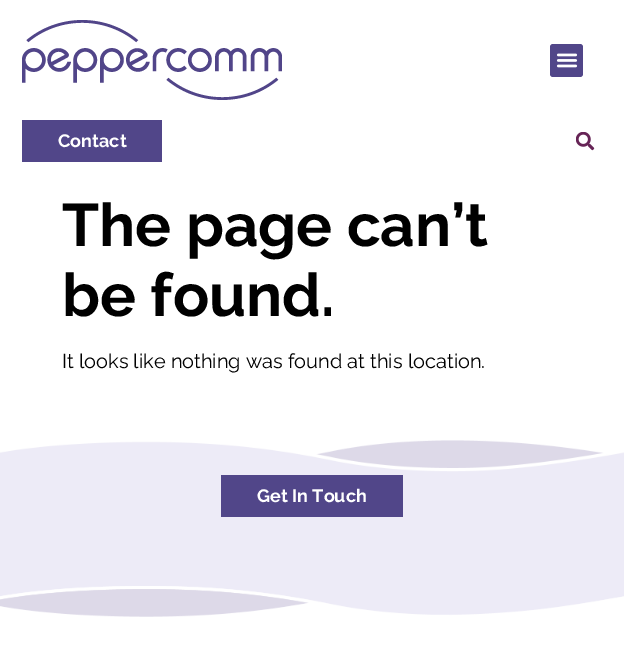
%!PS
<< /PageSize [624 648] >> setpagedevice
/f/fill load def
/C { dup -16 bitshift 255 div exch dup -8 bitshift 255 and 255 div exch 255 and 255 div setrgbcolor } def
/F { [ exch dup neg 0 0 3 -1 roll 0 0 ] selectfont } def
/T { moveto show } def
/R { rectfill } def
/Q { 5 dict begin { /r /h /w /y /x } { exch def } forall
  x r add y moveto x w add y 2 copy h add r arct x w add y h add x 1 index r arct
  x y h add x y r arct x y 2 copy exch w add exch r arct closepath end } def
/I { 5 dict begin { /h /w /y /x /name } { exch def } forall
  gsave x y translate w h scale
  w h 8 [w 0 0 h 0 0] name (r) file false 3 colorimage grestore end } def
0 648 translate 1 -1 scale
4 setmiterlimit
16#FFFFFF C
0 0 624 648 R
(1.rgb) 22 20 260 80 I
16#514689 C
550 44 33 33 3 Q f
(2.rgb) 556 53 22 15 I
22 120 140 42 R
/Raleway-Bold 18 F
16#FFFFFF C
(Contact) 58 147 T
(3.rgb) 576 132 19 19 I
/Raleway-Bold 60 F
16#000000 C
(The page can’t) 62 246 T
(be found.) 62 316 T
/Raleway-Regular 20 F
(It looks like nothing was found at this location.) 62 368 T
(4.rgb) 0 440 624 35 I
16#EDEBF7 C
0 475 624 42 R
16#514689 C
221 475 182 42 R
/Raleway-Bold 18 F
16#FFFFFF C
(Get In Touch) 257 502 T
(5.rgb) 0 517 624 100 I
showpage
